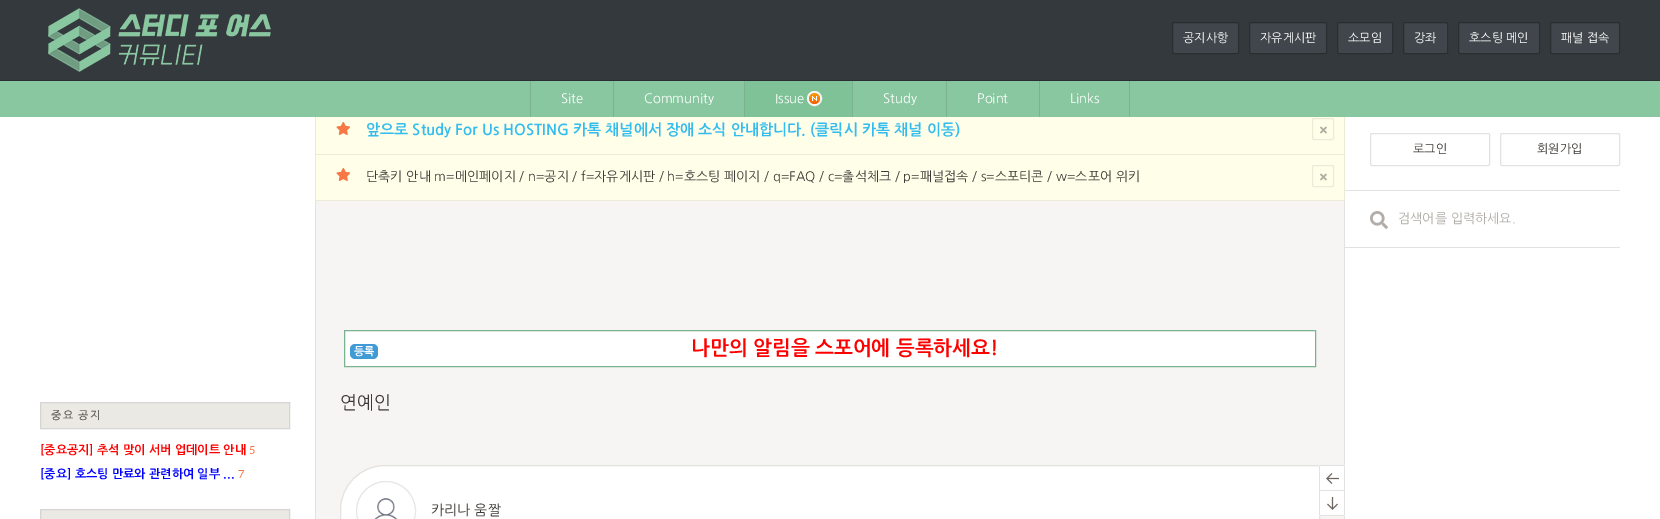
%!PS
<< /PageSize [1660 519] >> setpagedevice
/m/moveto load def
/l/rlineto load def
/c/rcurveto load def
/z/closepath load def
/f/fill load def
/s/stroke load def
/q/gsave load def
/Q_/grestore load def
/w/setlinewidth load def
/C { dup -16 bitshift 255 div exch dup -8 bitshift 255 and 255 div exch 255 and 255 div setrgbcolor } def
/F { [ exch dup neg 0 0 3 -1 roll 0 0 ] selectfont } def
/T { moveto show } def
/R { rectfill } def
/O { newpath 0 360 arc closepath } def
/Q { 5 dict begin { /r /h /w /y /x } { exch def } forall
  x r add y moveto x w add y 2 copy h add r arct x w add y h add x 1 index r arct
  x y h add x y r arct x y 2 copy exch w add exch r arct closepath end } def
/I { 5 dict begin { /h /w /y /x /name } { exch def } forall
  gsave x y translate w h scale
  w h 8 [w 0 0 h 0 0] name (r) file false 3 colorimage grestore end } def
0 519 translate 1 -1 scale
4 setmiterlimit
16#FFFFFF C
0 0 1660 519 R
16#34393D C
0 0 1660 80 R
(1.rgb) 48 8 223 64 I
16#40464B C
1172.5 22.5 66 31 1.5 Q q f Q_
16#2A2E31 C
s
/NanumGothic-Regular 12 F
16#FFFFFF C
(공지사항) 1183 42 T
16#40464B C
1249.5 22.5 77 31 1.5 Q q f Q_
16#2A2E31 C
s
16#FFFFFF C
(자유게시판) 1260 42 T
16#40464B C
1337.5 22.5 55 31 1.5 Q q f Q_
16#2A2E31 C
s
16#FFFFFF C
(소모임) 1348 42 T
16#40464B C
1403.5 22.5 44 31 1.5 Q q f Q_
16#2A2E31 C
s
16#FFFFFF C
(강좌) 1414 42 T
16#40464B C
1458.5 22.5 81 31 1.5 Q q f Q_
16#2A2E31 C
s
16#FFFFFF C
(호스팅 메인) 1469 42 T
16#40464B C
1550.5 22.5 69 31 1.5 Q q f Q_
16#2A2E31 C
s
16#FFFFFF C
(패널 접속) 1561 42 T
16#89C7A0 C
0 81 1660 36 R
16#2A2E31 C
0 80 1660 1 R
16#7BB390 C
530 81 1 36 R
613 81 1 36 R
/NanumGothic-Regular 13 F
16#FFFFFF C
(Site) 561 103 T
16#7BB390 C
744 81 1 36 R
16#FFFFFF C
(Community) 644 103 T
16#7BB390 C
852 81 1 36 R
16#7FC298 C
745 81 107 36 R
16#FFFFFF C
(Issue) 775 103 T
16#F6F6F6 C
2 w
814.5 98.5 6.5 O s
(2.rgb) 809 93 11 11 I
16#7BB390 C
946 81 1 36 R
16#FFFFFF C
(Study) 883 103 T
16#7BB390 C
1039 81 1 36 R
16#FFFFFF C
(Point) 977 103 T
16#7BB390 C
1129 81 1 36 R
16#FFFFFF C
(Links) 1070 103 T
16#FFFFE9 C
316 117 1028 37 R
16#EBEBD7 C
1344 117 1 84 R
315 154 1030 1 R
315 117 1 38 R
(3.rgb) 336 122 15 13 I
/NanumGothic-Bold 15 F
16#33BDEF C
(앞으로 Study For Us HOSTING 카톡 채널에서 장애 소식 안내합니다. \(클릭시 카톡 채널 이동\)) 366 135 T
16#EBEBD7 C
1 w
1312.5 118.5 21 21 1.5 Q s
(4.rgb) 1320 126 7 8 I
16#FFFFE9 C
316 155 1028 45 R
16#EBEBD7 C
315 200 1030 1 R
315 155 1 46 R
(3.rgb) 336 168 15 13 I
/NanumGothic-Regular 13 F
16#3E3A37 C
(단축키 안내 m=메인페이지 / n=공지 / f=자유게시판 / h=호스팅 페이지 / q=FAQ / c=출석체크 / p=패널접속 / s=스포티콘 / w=스포어 위키) 366 181 T
16#EBEBD7 C
1312.5 165.5 21 21 1.5 Q s
(4.rgb) 1320 173 7 8 I
16#F6F5F3 C
316 201 1028 318 R
16#FFFFFF C
344.5 330.5 m 971 0 l 0 36 l -971 0 l z q f Q_
16#7BB390 C
s
16#409AD6 C
350 344 28 15 5 Q f
/NanumGothic-Bold 11 F
16#FFFFFF C
(등록) 354 355 T
/NanumGothic-Bold 20 F
16#FF0000 C
(나만의 알림을 스포어에 등록하세요!) 691 355 T
/NanumGothic-Regular 18 F
16#3E3A37 C
(연예인) 340 409 T
16#FFFFFF C
385 465.5 m 934.5 0 l 0 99 l -979 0 l 0 -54.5 l 0 -24.5 20 -44.5 44.5 -44.5 c z q f Q_
16#E3E2E0 C
s
(5.rgb) 374 498 24 21 I
16#E6E6E6 C
386 511 29.5 O s
/NanumGothic-Regular 14 F
16#3E3A37 C
(카리나 움짤) 431 515 T
16#E3E2E0 C
1344 201 1 318 R
16#FFFFFF C
1319 465 26 51 2 Q f
16#E3E2E0 C
1320 465 24 1 R
1344 466 1 49 R
1319 466 1 49 R
1320 490 24 1 R
(6.rgb) 1326 473 13 11 I
1320 515 24 1 R
(7.rgb) 1327 497 11 13 I
1345 190 275 1 R
1370.5 133.5 119 32 1.5 Q s
/NanumGothic-Regular 12 F
16#3E3A37 C
(로그인) 1413 153 T
16#E3E2E0 C
1500.5 133.5 119 32 1.5 Q s
16#3E3A37 C
(회원가입) 1537 153 T
16#E3E2E0 C
1345 247 275 1 R
(8.rgb) 1370 211 18 18 I
/NanumGothic-Regular 13 F
16#B2ADA8 C
(검색어를 입력하세요.) 1398 223 T
16#EBE9E4 C
40.5 402.5 m 249 0 l 0 26 l -249 0 l z q f Q_
16#D7D5D3 C
s
/NanumGothic-Regular 11 F
16#3E3A37 C
51 419 m -1 0 32 1.5 0 (중요 공지) awidthshow
/NanumGothic-Bold 12 F
16#FF0000 C
([중요공지] 추석 맞이 서버 업데이트 안내) 40 454 T
/Lato-Regular 11 F
16#F67846 C
(5) 249 454 T
/NanumGothic-Bold 12 F
16#0000FF C
([중요] 호스팅 만료와 관련하여 일부 ...) 40 478 T
/Lato-Regular 11 F
16#F67846 C
(7) 238 478 T
16#EBE9E4 C
40.5 509.5 m 249 0 l 0 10 l -249 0 l z q f Q_
16#D7D5D3 C
s
16#E3E2E0 C
315 201 1 318 R
showpage
